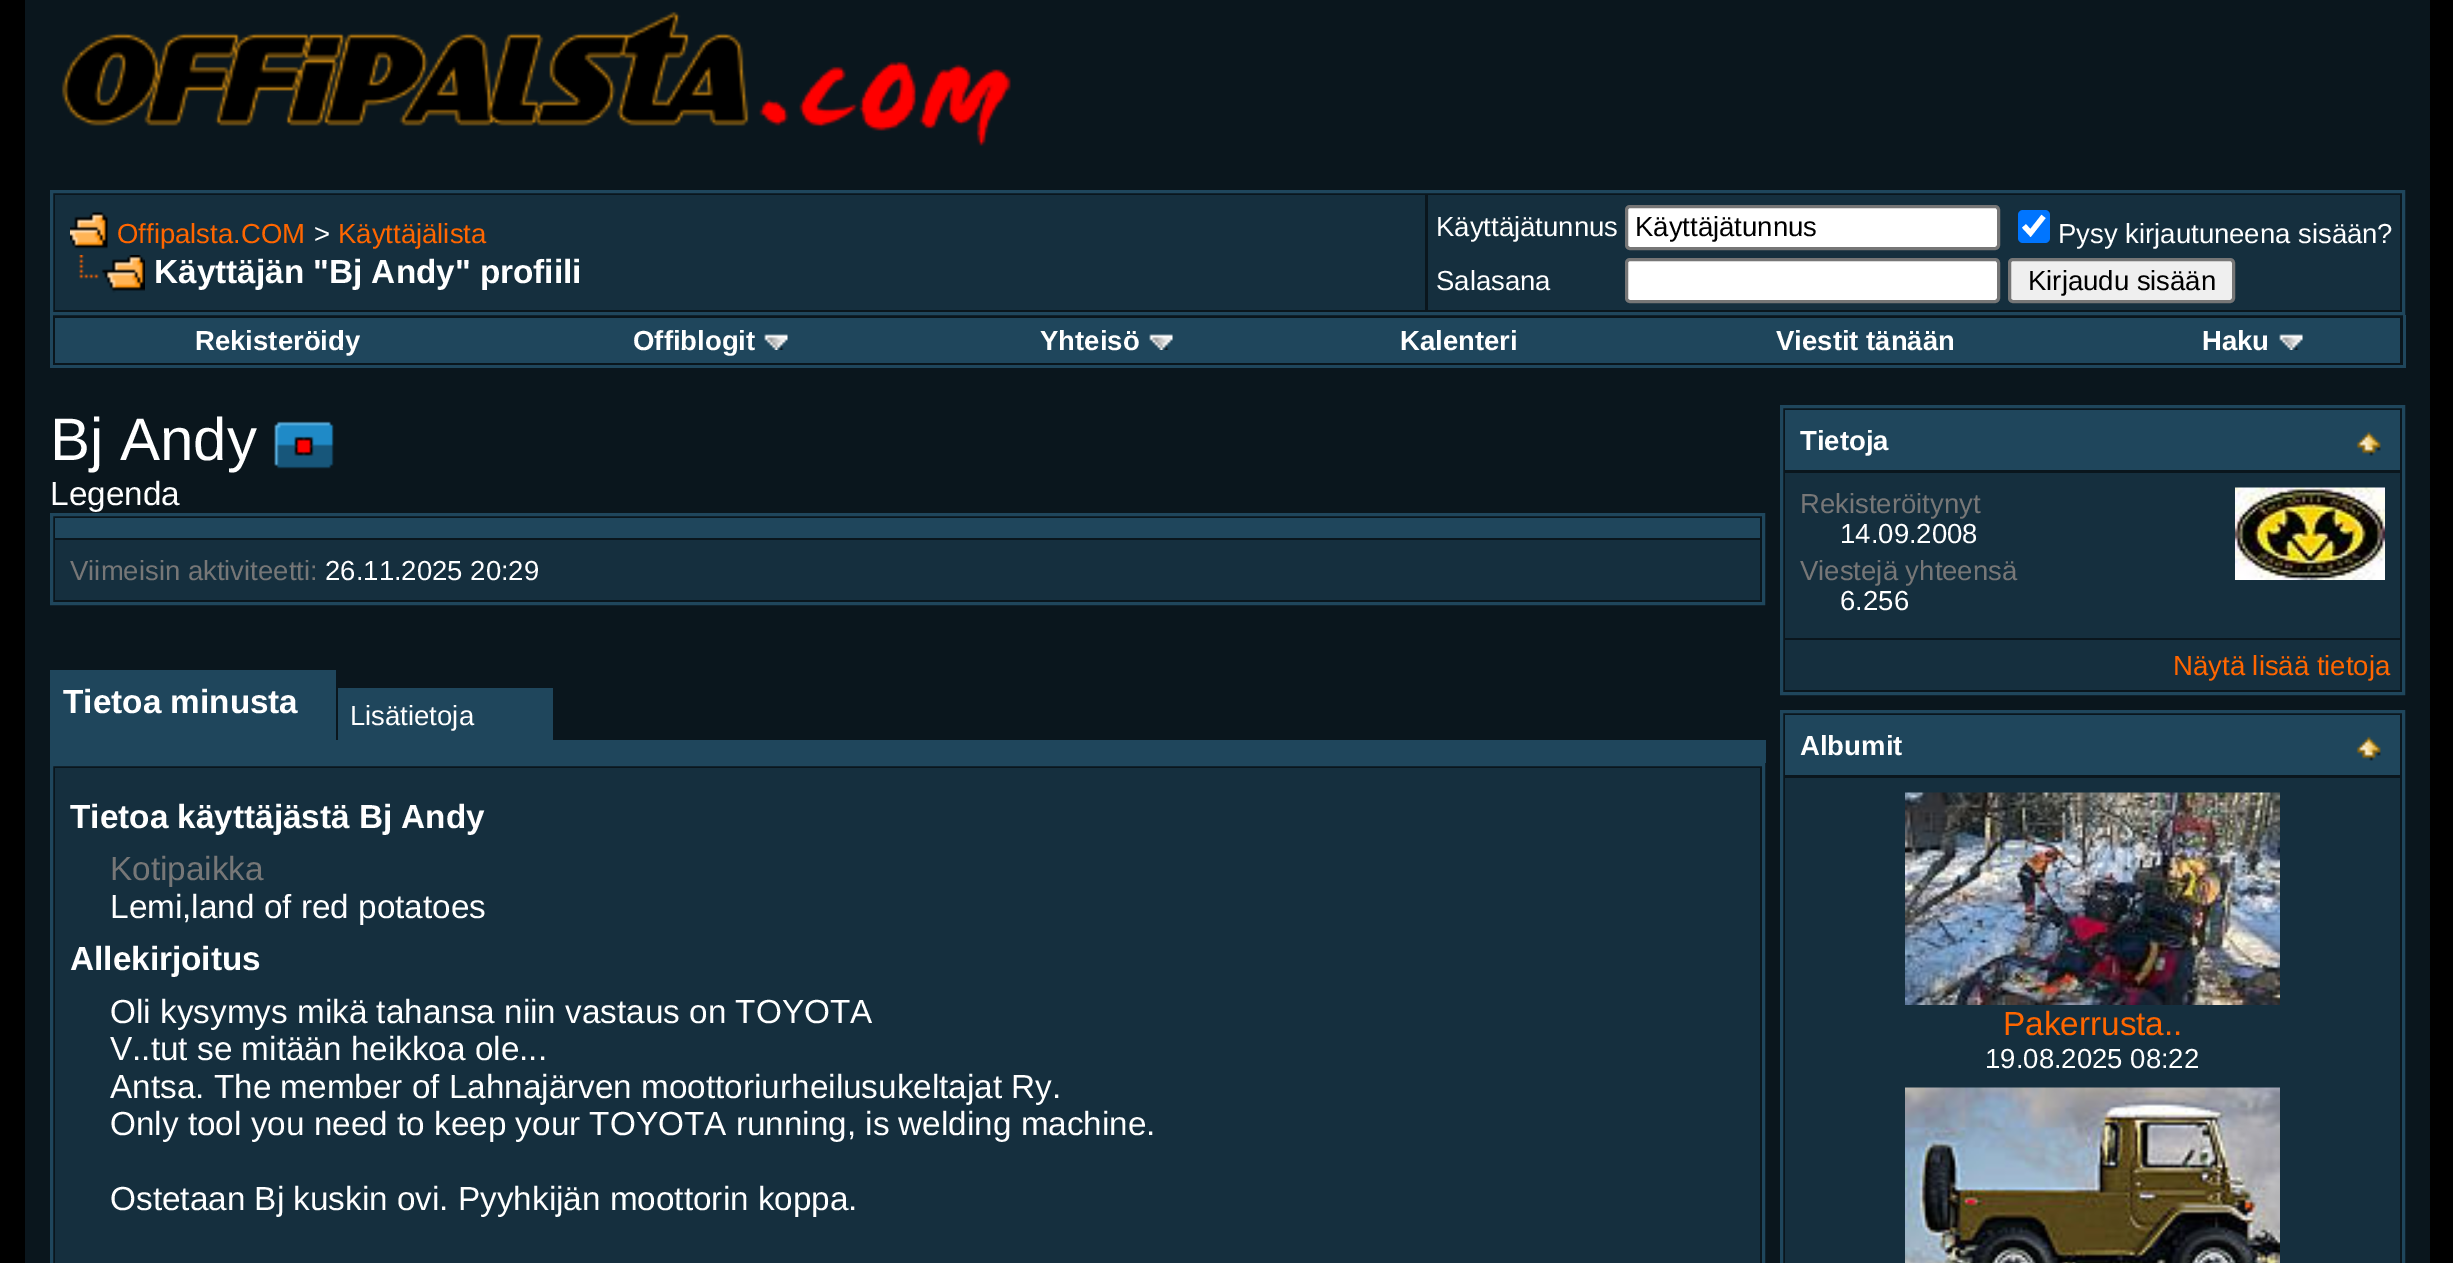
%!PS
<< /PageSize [2453 1263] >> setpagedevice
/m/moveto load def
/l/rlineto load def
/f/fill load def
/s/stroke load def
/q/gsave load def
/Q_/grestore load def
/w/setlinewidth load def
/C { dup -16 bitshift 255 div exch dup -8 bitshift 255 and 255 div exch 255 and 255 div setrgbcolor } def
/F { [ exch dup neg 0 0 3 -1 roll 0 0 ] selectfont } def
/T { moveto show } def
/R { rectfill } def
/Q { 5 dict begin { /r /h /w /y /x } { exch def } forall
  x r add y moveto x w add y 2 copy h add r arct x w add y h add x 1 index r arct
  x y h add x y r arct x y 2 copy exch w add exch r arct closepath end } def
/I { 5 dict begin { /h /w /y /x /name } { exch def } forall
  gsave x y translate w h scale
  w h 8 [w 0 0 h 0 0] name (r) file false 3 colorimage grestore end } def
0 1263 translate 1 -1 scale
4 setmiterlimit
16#000000 C
0 0 2453 1263 R
16#0A161D C
25 0 2405 1263 R
(1.rgb) 61 11 950 135 I
16#1F465C C
3 w
51.5 191.5 2352 122 rectstroke
16#152F3E C
55 195 1370 115 R
(2.rgb) 70 212 38 37 I
/LiberationSans-Regular 27.5 F
16#FF6600 C
(Offipalsta.COM) 117 243 T
16#FFFFFF C
(>) 314 243 T
16#FF6600 C
(Käyttäjälista) 338 243 T
(3.rgb) 79 255 66 38 I
/LiberationSans-Bold 33.3 F
16#FFFFFF C
(Käyttäjän "Bj Andy" profiili) 154 283 T
16#152F3E C
1428 195 972 115 R
/LiberationSans-Regular 27.5 F
16#FFFFFF C
(Käyttäjätunnus) 1436 236 T
1626.5 206.5 372 42 3.5 Q q f Q_
16#767676 C
s
16#000000 C
(Käyttäjätunnus) 1635 236 T
16#0075FF C
2018 210 32 33 5 Q f
16#FFFFFF C
5.2 w
2024 226 m 6.5 7 l 13 -16.5 l s
(Pysy kirjautuneena sisään?) 2058 243 T
(Salasana) 1436 290 T
1626.5 259.5 372 42 3.5 Q q f Q_
16#767676 C
3 w
s
16#EFEFEF C
2009.5 259.5 224 42 3.5 Q q f Q_
16#767676 C
s
16#000000 C
(Kirjaudu sisään) 2028 290 T
16#1F465C C
2403 315 3 53 R
50 365 2355 3 R
50 315 3 53 R
55 318 2345 45 R
/LiberationSans-Bold 27.5 F
16#FFFFFF C
(Rekisteröidy) 195 350 T
(Offiblogit) 633 350 T
(4.rgb) 764 334 24 16 I
(Yhteisö) 1040 350 T
(5.rgb) 1149 334 24 16 I
(Kalenteri) 1400 350 T
(Viestit tänään) 1776 350 T
(Haku) 2202 350 T
(6.rgb) 2279 334 24 16 I
/LiberationSans-Regular 60 F
(Bj Andy) 50 460 T
(7.rgb) 274 421 60 48 I
/LiberationSans-Regular 33.3 F
(Legenda) 50 505 T
16#1F465C C
51.5 514.5 1712 89 rectstroke
55 518 1705 20 R
16#152F3E C
55 540 1705 60 R
/LiberationSans-Regular 27.5 F
16#777777 C
(Viimeisin aktiviteetti:) 70 580 T
16#FFFFFF C
(26.11.2025 20:29) 325 580 T
16#1F465C C
50 670 283 70 R
50 740 1716 23 R
333 670 3 73 R
/LiberationSans-Bold 33.3 F
16#FFFFFF C
(Tietoa minusta) 63 713 T
16#1F465C C
338 688 215 52 R
/LiberationSans-Regular 27.5 F
16#FFFFFF C
(Lisätietoja) 350 725 T
16#1F465C C
51.5 764.5 1712 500 rectstroke
16#152F3E C
55 768 1705 495 R
/LiberationSans-Bold 33.3 F
16#FFFFFF C
(Tietoa käyttäjästä Bj Andy) 70 828 T
/LiberationSans-Regular 33.3 F
16#777777 C
(Kotipaikka) 110 880 T
16#FFFFFF C
(Lemi,land of red potatoes) 110 918 T
/LiberationSans-Bold 33.3 F
(Allekirjoitus) 70 970 T
/LiberationSans-Regular 33.3 F
(Oli kysymys mikä tahansa niin vastaus on TOYOTA) 110 1023 T
(V..tut se mitään heikkoa ole...) 110 1060 T
(Antsa. The member of Lahnajärven moottoriurheilusukeltajat Ry.) 110 1098 T
(Only tool you need to keep your TOYOTA running, is welding machine.) 110 1135 T
(Ostetaan Bj kuskin ovi. Pyyhkijän moottorin koppa.) 110 1210 T
16#1F465C C
1781.5 406.5 622 287 rectstroke
1785 410 615 60 R
/LiberationSans-Bold 27.5 F
16#FFFFFF C
(Tietoja) 1800 450 T
(8.rgb) 2356 431 25 25 I
16#152F3E C
1785 473 615 165 R
/LiberationSans-Regular 27.5 F
16#777777 C
(Rekisteröitynyt) 1800 513 T
16#FFFFFF C
(14.09.2008) 1840 543 T
16#777777 C
(Viestejä yhteensä) 1800 580 T
16#FFFFFF C
(6.256) 1840 610 T
(9.rgb) 2235 487 150 93 I
16#152F3E C
1785 640 615 50 R
16#FF6600 C
(Näytä lisää tietoja) 2173 675 T
16#1F465C C
1781.5 711.5 622 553 rectstroke
1785 715 615 60 R
/LiberationSans-Bold 27.5 F
16#FFFFFF C
(Albumit) 1800 755 T
(8.rgb) 2356 736 25 25 I
16#152F3E C
1785 778 615 485 R
(10.rgb) 1905 792 375 213 I
/LiberationSans-Regular 33.3 F
16#FF6600 C
(Pakerrusta..) 2003 1035 T
/LiberationSans-Regular 27.5 F
16#FFFFFF C
(19.08.2025 08:22) 1985 1068 T
(11.rgb) 1905 1087 375 176 I
showpage
